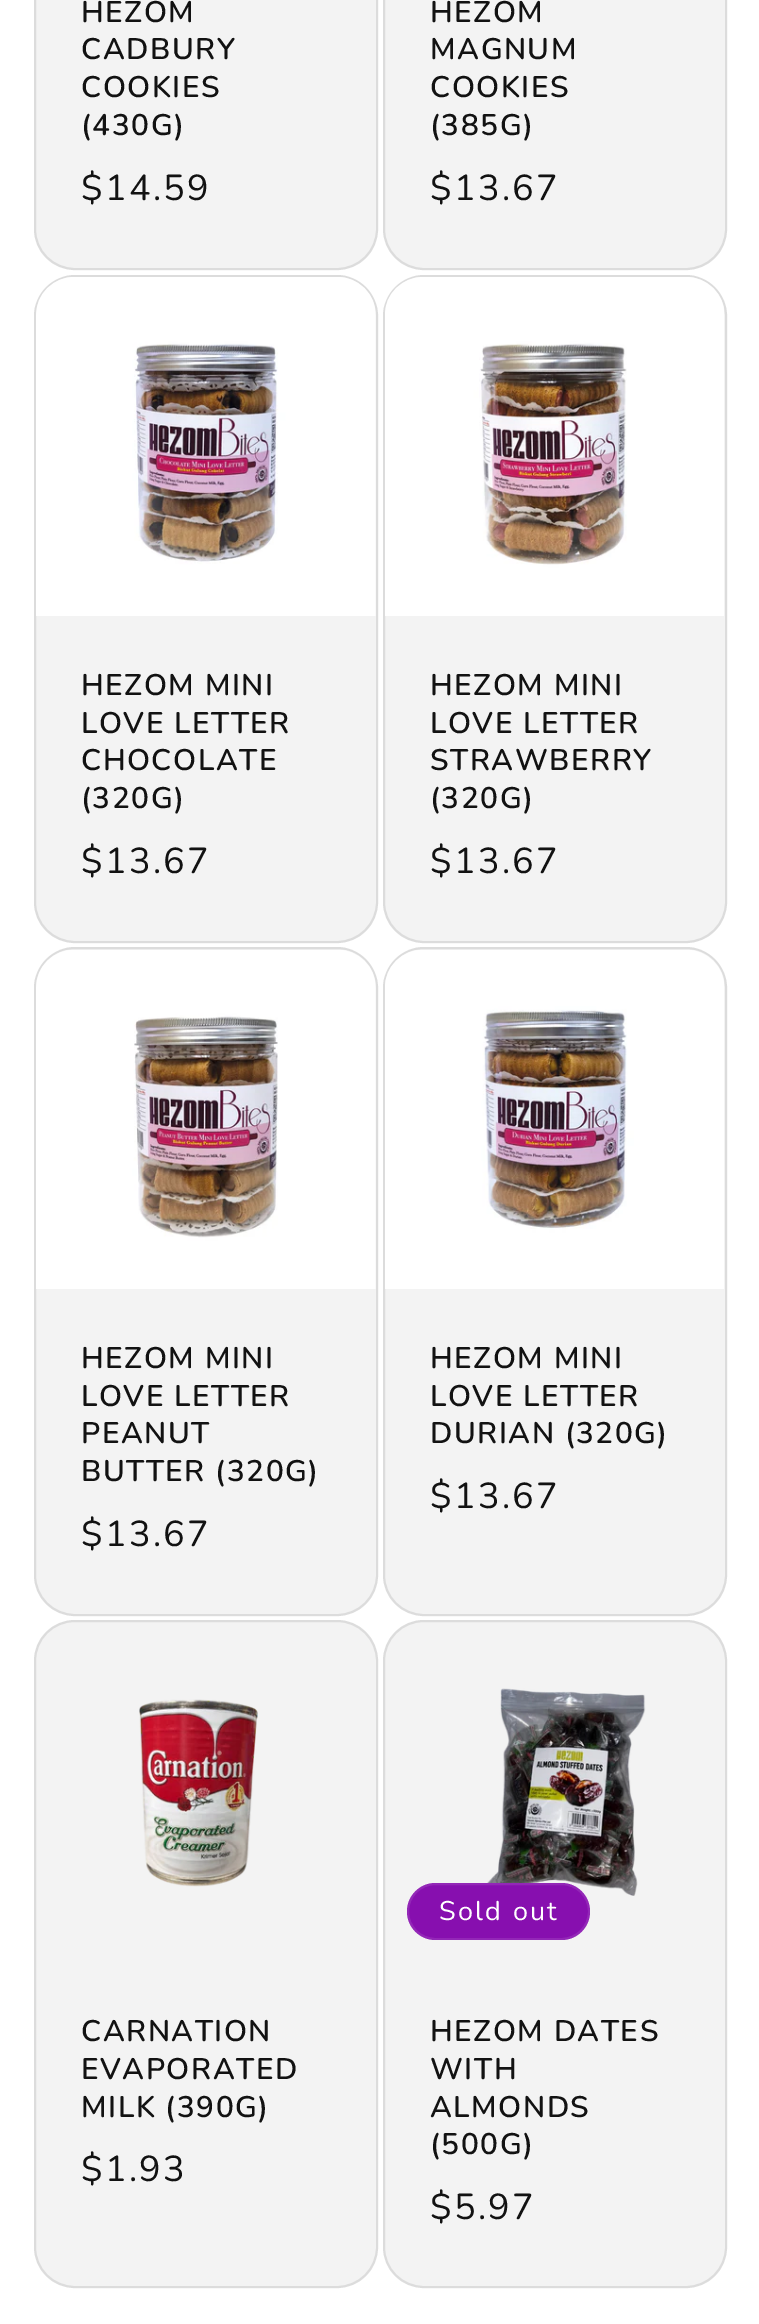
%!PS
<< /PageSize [759 2324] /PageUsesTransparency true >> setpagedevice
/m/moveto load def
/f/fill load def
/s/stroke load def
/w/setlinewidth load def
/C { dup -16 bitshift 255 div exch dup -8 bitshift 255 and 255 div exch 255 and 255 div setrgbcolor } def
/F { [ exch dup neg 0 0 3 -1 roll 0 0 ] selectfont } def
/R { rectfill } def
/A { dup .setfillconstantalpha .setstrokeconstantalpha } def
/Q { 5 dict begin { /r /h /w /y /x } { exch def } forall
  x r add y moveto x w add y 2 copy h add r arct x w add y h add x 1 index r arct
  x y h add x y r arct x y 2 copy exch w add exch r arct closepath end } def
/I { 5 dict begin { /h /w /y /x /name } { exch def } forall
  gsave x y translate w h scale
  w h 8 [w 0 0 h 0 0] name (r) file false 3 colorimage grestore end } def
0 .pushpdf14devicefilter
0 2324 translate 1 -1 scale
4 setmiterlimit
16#FFFFFF C
0 0 759 2324 R
16#F3F3F3 C
34 -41 344 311 41 Q f
0.1 A
16#121212 C
2 w
35 -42 342 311 40 Q s
/Nunito-SemiBold 29.75 F
1 A
81 22 m 1.5 0 (HEZOM) ashow
81 59 m 1.5 0 (CADBURY) ashow
81 97 m 1.5 0 (COOKIES) ashow
81 135 m 1.5 0 (\(430G\)) ashow
/Nunito-Regular 36 F
81 200 m 2.25 0 ($14.59) ashow
16#F3F3F3 C
383 -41 344 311 41 Q f
0.1 A
16#121212 C
384 -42 342 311 40 Q s
/Nunito-SemiBold 29.75 F
1 A
430 22 m 1.5 0 (HEZOM) ashow
430 59 m 1.5 0 (MAGNUM) ashow
430 97 m 1.5 0 (COOKIES) ashow
430 135 m 1.5 0 (\(385G\)) ashow
/Nunito-Regular 36 F
430 200 m 2.25 0 ($13.67) ashow
16#F3F3F3 C
34 275 344 668 41 Q f
0.1 A
16#121212 C
35 276 342 666 40 Q s
1 A
(1.rgb) 36 277 340 339 I
/Nunito-SemiBold 29.75 F
81 695 m 1.5 0 (HEZOM MINI) ashow
81 733 m 1.5 0 (LOVE LETTER) ashow
81 770 m 1.5 0 (CHOCOLATE) ashow
81 808 m 1.5 0 (\(320G\)) ashow
/Nunito-Regular 36 F
81 873 m 2.25 0 ($13.67) ashow
16#F3F3F3 C
383 275 344 668 41 Q f
0.1 A
16#121212 C
384 276 342 666 40 Q s
1 A
(2.rgb) 385 277 339 339 I
/Nunito-SemiBold 29.75 F
430 695 m 1.5 0 (HEZOM MINI) ashow
430 733 m 1.5 0 (LOVE LETTER) ashow
430 770 m 1.5 0 (STRAWBERRY) ashow
430 808 m 1.5 0 (\(320G\)) ashow
/Nunito-Regular 36 F
430 873 m 2.25 0 ($13.67) ashow
16#F3F3F3 C
34 947 344 669 41 Q f
0.1 A
16#121212 C
35 948 342 667 40 Q s
1 A
(3.rgb) 36 950 340 339 I
/Nunito-SemiBold 29.75 F
81 1368 m 1.5 0 (HEZOM MINI) ashow
81 1406 m 1.5 0 (LOVE LETTER) ashow
81 1443 m 1.5 0 (PEANUT) ashow
81 1481 m 1.5 0 (BUTTER \(320G\)) ashow
/Nunito-Regular 36 F
81 1546 m 2.25 0 ($13.67) ashow
16#F3F3F3 C
383 947 344 669 41 Q f
0.1 A
16#121212 C
384 948 342 667 40 Q s
1 A
(4.rgb) 385 950 339 339 I
/Nunito-SemiBold 29.75 F
430 1368 m 1.5 0 (HEZOM MINI) ashow
430 1406 m 1.5 0 (LOVE LETTER) ashow
430 1443 m 1.5 0 (DURIAN \(320G\)) ashow
/Nunito-Regular 36 F
430 1508 m 2.25 0 ($13.67) ashow
16#F3F3F3 C
34 1620 344 668 41 Q f
0.1 A
16#121212 C
35 1621 342 666 40 Q s
1 A
(5.rgb) 139 1699 119 188 I
/Nunito-SemiBold 29.75 F
81 2041 m 1.5 0 (CARNATION) ashow
81 2079 m 1.5 0 (EVAPORATED) ashow
81 2117 m 1.5 0 (MILK \(390G\)) ashow
/Nunito-Regular 36 F
81 2181 m 2.25 0 ($1.93) ashow
16#F3F3F3 C
383 1620 344 668 41 Q f
0.1 A
16#121212 C
384 1621 342 666 40 Q s
1 A
(6.rgb) 487 1688 159 208 I
16#870FAF C
407 1883 183 57 28.5 Q f
0.1 A
16#FFFFFF C
408 1884 181 55 27.5 Q s
/Nunito-Regular 27 F
1 A
439 1920 m 2.25 0 (Sold out) ashow
/Nunito-SemiBold 29.75 F
16#121212 C
430 2041 m 1.5 0 (HEZOM DATES) ashow
430 2079 m 1.5 0 (WITH) ashow
430 2117 m 1.5 0 (ALMONDS) ashow
430 2154 m 1.5 0 (\(500G\)) ashow
/Nunito-Regular 36 F
430 2219 m 2.25 0 ($5.97) ashow
.poppdf14devicefilter showpage
